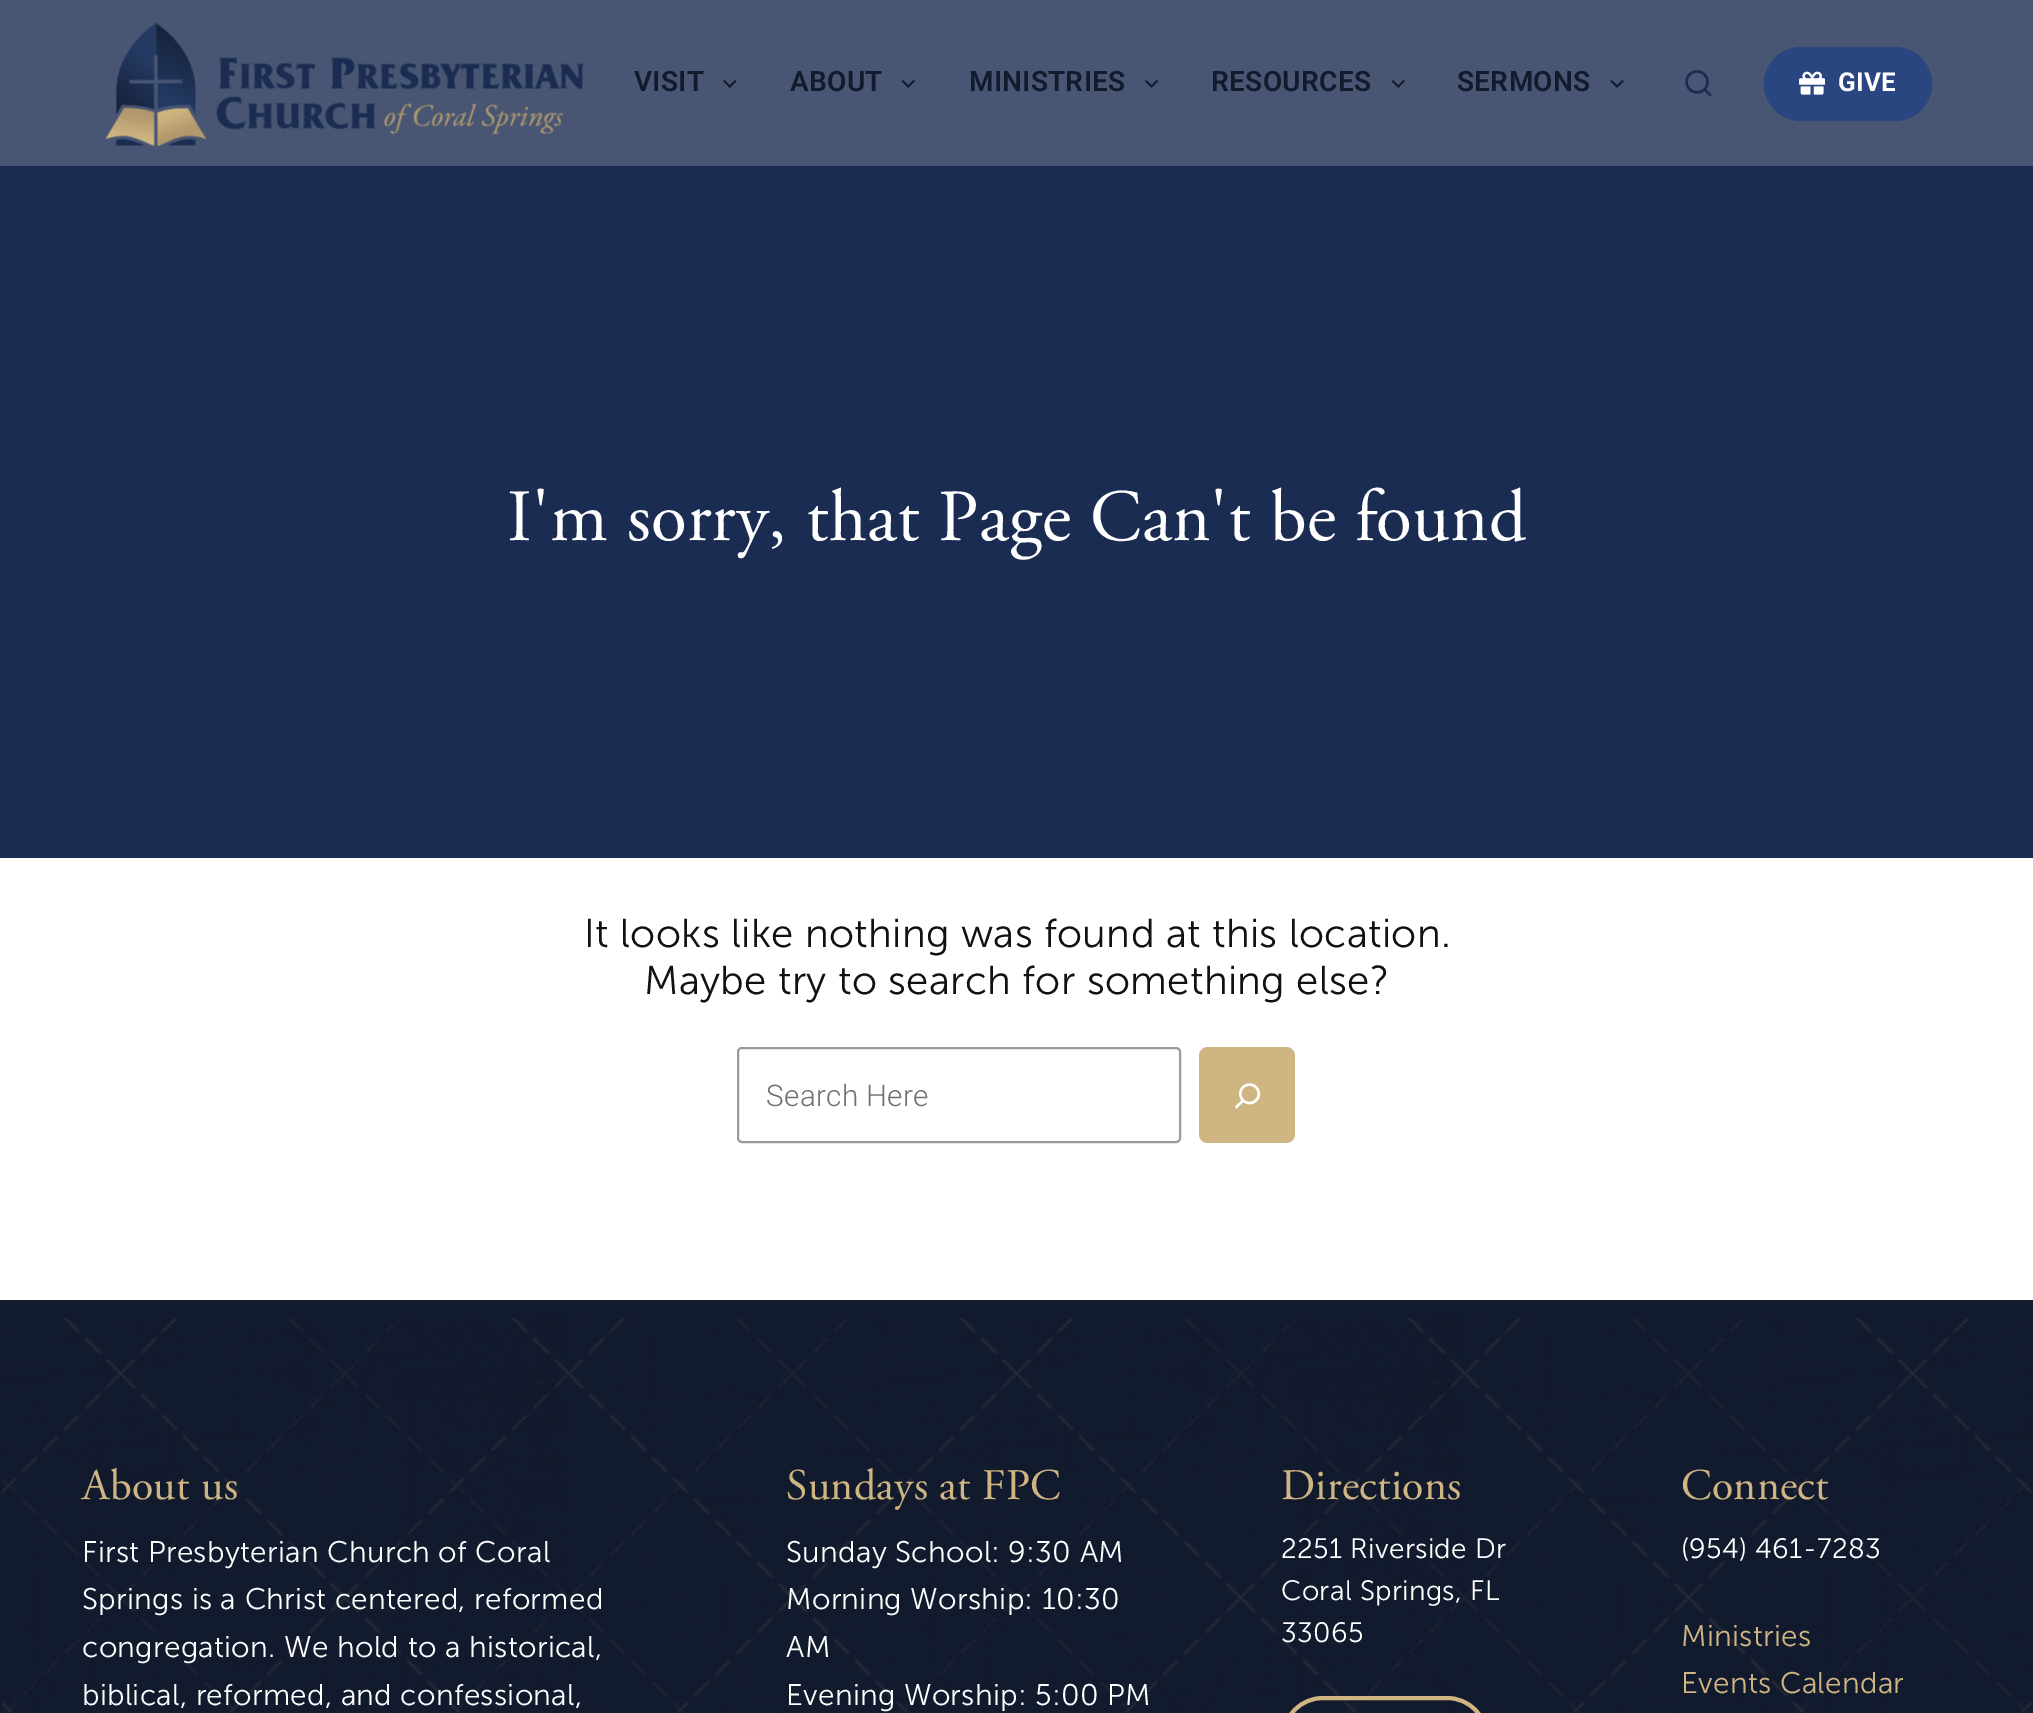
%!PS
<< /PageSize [2033 1713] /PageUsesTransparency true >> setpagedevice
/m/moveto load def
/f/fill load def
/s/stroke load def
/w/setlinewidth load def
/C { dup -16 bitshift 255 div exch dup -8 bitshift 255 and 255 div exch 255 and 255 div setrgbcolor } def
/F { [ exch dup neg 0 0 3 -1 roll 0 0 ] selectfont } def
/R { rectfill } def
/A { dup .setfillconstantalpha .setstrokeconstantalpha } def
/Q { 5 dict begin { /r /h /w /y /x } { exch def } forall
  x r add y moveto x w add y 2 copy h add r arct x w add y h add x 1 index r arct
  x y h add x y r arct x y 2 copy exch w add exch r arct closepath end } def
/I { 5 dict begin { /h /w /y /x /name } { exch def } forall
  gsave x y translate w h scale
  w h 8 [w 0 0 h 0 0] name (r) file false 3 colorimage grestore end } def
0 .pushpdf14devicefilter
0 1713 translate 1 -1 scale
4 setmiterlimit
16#FFFFFF C
0 0 2033 1713 R
16#485673 C
0 0 2033 166 R
(1.rgb) 105 22 479 125 I
/Roboto-SemiBold 28 F
16#121A2D C
634 91 m .3 0 (VISIT) ashow
(2.rgb) 723 80 14 8 I
790 91 m .3 0 (ABOUT) ashow
(3.rgb) 901 80 14 8 I
969 91 m .3 0 (MINISTRIES) ashow
(4.rgb) 1145 80 14 8 I
1211 91 m .3 0 (RESOURCES) ashow
(3.rgb) 1391 80 14 8 I
1457 91 m .3 0 (SERMONS) ashow
(5.rgb) 1610 80 14 8 I
(6.rgb) 1685 70 27 26 I
16#294680 C
1764 47 168 74 37 Q f
(7.rgb) 1799 71 26 24 I
/Roboto-Bold 26 F
16#FFFFFF C
1838 91 m .3 0 (GIVE) ashow
16#1A2C51 C
0 166 2033 692 R
/AdobeGaramond-Regular 73.5 F
16#FFFFFF C
507 540 m .3 0 (I'm sorry, that Page Can't be found) ashow
/MuseoSans-Light 40.25 F
16#111111 C
584 947 m .3 0 (It looks like nothing was found at this location.) ashow
644 994 m .3 0 (Maybe try to search for something else?) ashow
16#9A9A9A C
2 w
738 1048 442 94 4 Q s
/Roboto-Light 29.75 F
16#707070 C
766 1106 m .3 0 (Search Here) ashow
16#CEB581 C
1199 1047 96 96 9 Q f
(8.rgb) 1234 1083 27 26 I
16#121A2D C
0 1300 2033 413 R
(9.rgb) 2 1318 2030 395 I
0.4 A
2 1318 2030 395 R
/AdobeGaramond-Regular 43.75 F
1 A
16#CEB581 C
82 1499 m .3 0 (About us) ashow
/MuseoSans-Light 29.75 F
16#FFFFFF C
82 1562 m .3 0 (First Presbyterian Church of Coral) ashow
82 1609 m .3 0 (Springs is a Christ centered, reformed) ashow
82 1657 m .3 0 (congregation. We hold to a historical,) ashow
82 1705 m .3 0 (biblical, reformed, and confessional,) ashow
/AdobeGaramond-Regular 43.75 F
16#CEB581 C
786 1499 m .3 0 (Sundays at FPC) ashow
/MuseoSans-Light 29.75 F
16#FFFFFF C
786 1562 m .3 0 (Sunday School: 9:30 AM) ashow
786 1609 m .3 0 (Morning Worship: 10:30) ashow
786 1657 m .3 0 (AM) ashow
786 1705 m .3 0 (Evening Worship: 5:00 PM) ashow
/AdobeGaramond-Regular 43.75 F
16#CEB581 C
1281 1499 m .3 0 (Directions) ashow
/MuseoSans-Light 28 F
16#FFFFFF C
1281 1558 m .3 0 (2251 Riverside Dr) ashow
1281 1600 m .3 0 (Coral Springs, FL) ashow
1281 1642 m .3 0 (33065) ashow
16#CEB581 C
4 w
1283 1698 204 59 40 Q s
/AdobeGaramond-Regular 43.75 F
1681 1499 m .3 0 (Connect) ashow
/MuseoSans-Light 28 F
16#FFFFFF C
1681 1558 m .3 0 (\(954\) 461-7283) ashow
/MuseoSans-Light 29.75 F
16#CEB581 C
1681 1646 m .3 0 (Ministries) ashow
1681 1693 m .3 0 (Events Calendar) ashow
.poppdf14devicefilter showpage
